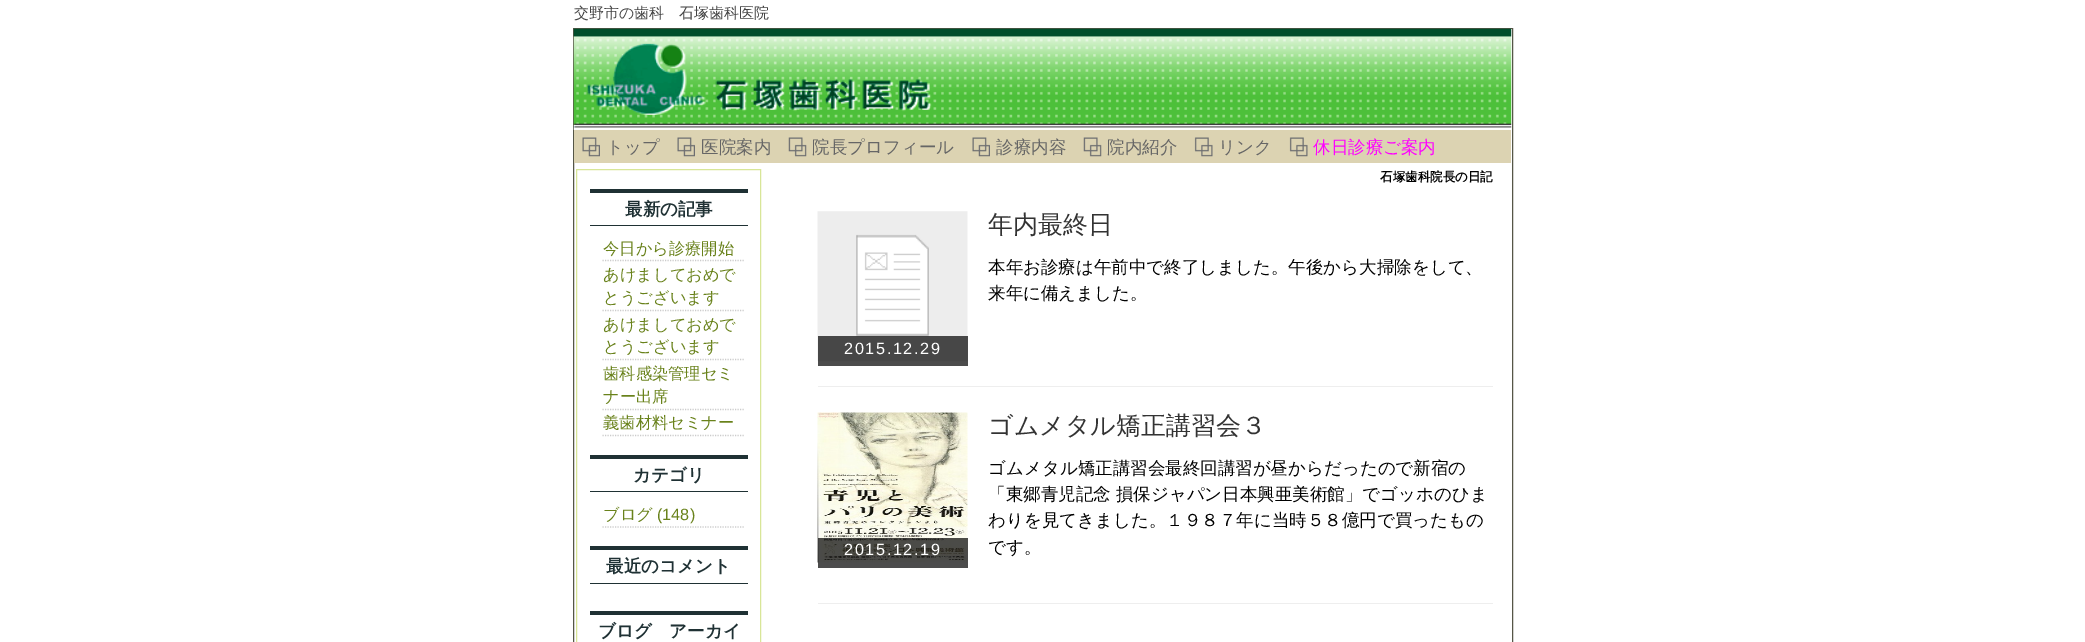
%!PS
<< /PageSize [2085 642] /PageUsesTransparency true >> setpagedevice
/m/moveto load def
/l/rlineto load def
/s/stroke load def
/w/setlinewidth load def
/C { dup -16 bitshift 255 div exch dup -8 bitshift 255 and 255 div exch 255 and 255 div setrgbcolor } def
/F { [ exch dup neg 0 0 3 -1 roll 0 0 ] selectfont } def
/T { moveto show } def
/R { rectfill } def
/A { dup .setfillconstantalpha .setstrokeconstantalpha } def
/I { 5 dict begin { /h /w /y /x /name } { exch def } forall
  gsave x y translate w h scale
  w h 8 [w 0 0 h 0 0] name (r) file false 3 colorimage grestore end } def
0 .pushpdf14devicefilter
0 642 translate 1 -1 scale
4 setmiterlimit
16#FFFFFF C
0 0 2085 642 R
/WenQuanYiZenHei-Medium 15 F
16#444444 C
(交野市の歯科　石塚歯科医院) 574 18 T
16#555647 C
573.5 28.5 939 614 rectstroke
(1.rgb) 573 28 939 102 I
16#DCD3B2 C
574 130 937 33 R
(2.rgb) 582 137 18 20 I
/WenQuanYiZenHei-Medium 17.5 F
16#666666 C
(トップ) 606 153 T
(2.rgb) 677 137 18 20 I
(医院案内) 701 153 T
(3.rgb) 788 137 19 20 I
(院長プロフィール) 812 153 T
(2.rgb) 972 137 18 20 I
(診療内容) 996 153 T
(4.rgb) 1083 137 19 20 I
(院内紹介) 1107 153 T
(5.rgb) 1194 137 19 20 I
(リンク) 1218 153 T
(5.rgb) 1289 137 19 20 I
16#FF00FF C
(休日診療ご案内) 1313 153 T
16#D8E698 C
576.5 169.5 184 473 rectstroke
16#1F3134 C
590 189 158 4 R
590 225 158 1 R
/WenQuanYiZenHei-Bold 17.5 F
(最新の記事) 625 215 T
16#CCCCCC C
1.2 w
[1.25 1.25] 0 setdash
602.5 260.5 m 142.5 0 l s
/WenQuanYiZenHei-Medium 16.25 F
16#69821B C
(今日から診療開始) 603 254 T
16#CCCCCC C
602.5 310.5 m 142.5 0 l s
16#69821B C
(あけましておめで) 603 280 T
(とうございます) 603 303 T
16#CCCCCC C
602.5 359.5 m 142.5 0 l s
16#69821B C
(あけましておめで) 603 330 T
(とうございます) 603 352 T
16#CCCCCC C
602.5 409.5 m 142.5 0 l s
16#69821B C
(歯科感染管理セミ) 603 379 T
(ナー出席) 603 402 T
16#CCCCCC C
602.5 435.5 m 142.5 0 l s
16#69821B C
(義歯材料セミナー) 603 428 T
16#1F3134 C
590 455 158 4 R
590 491 158 1 R
/WenQuanYiZenHei-Bold 17.5 F
(カテゴリ) 633 481 T
16#CCCCCC C
602.5 527 m 142.5 0 l s
/WenQuanYiZenHei-Medium 16.25 F
16#69821B C
(ブログ) 603 520 T
/LiberationSans-Regular 16.25 F
(\(148\)) 657 520 T
16#1F3134 C
590 546 158 4 R
590 583 158 1 R
/WenQuanYiZenHei-Bold 17.5 F
(最近のコメント) 606 572 T
590 611 158 4 R
(ブログ　アーカイ) 598 637 T
/WenQuanYiZenHei-Bold 12.5 F
16#000000 C
(石塚歯科院長の日記) 1380 181 T
16#EEEEEE C
818 386 675 1 R
/WenQuanYiZenHei-Medium 25 F
16#333333 C
(年内最終日) 988 233 T
/WenQuanYiZenHei-Medium 17.5 F
16#000000 C
(本年お診療は午前中で終了しました。午後から大掃除をして、) 988 273 T
(来年に備えました。) 988 299 T
(6.rgb) 817 211 151 151 I
0.7 A
818 336 150 30 R
/LiberationSans-Regular 16.25 F
1 A
16#FFFFFF C
844 354 m 1.6 0 (2015.12.29) ashow
16#EEEEEE C
818 603 675 1 R
/WenQuanYiZenHei-Medium 25 F
16#333333 C
(ゴムメタル矯正講習会３) 988 434 T
(7.rgb) 817 412 151 151 I
0.7 A
16#000000 C
818 538 150 30 R
/LiberationSans-Regular 16.25 F
1 A
16#FFFFFF C
844 555 m 1.6 0 (2015.12.19) ashow
/WenQuanYiZenHei-Medium 17.5 F
16#000000 C
(ゴムメタル矯正講習会最終回講習が昼からだったので新宿の) 988 474 T
(「東郷青児記念 損保ジャパン日本興亜美術館」でゴッホのひま) 988 500 T
(わりを見てきました。１９８７年に当時５８億円で買ったもの) 988 526 T
(です。) 988 553 T
.poppdf14devicefilter showpage
